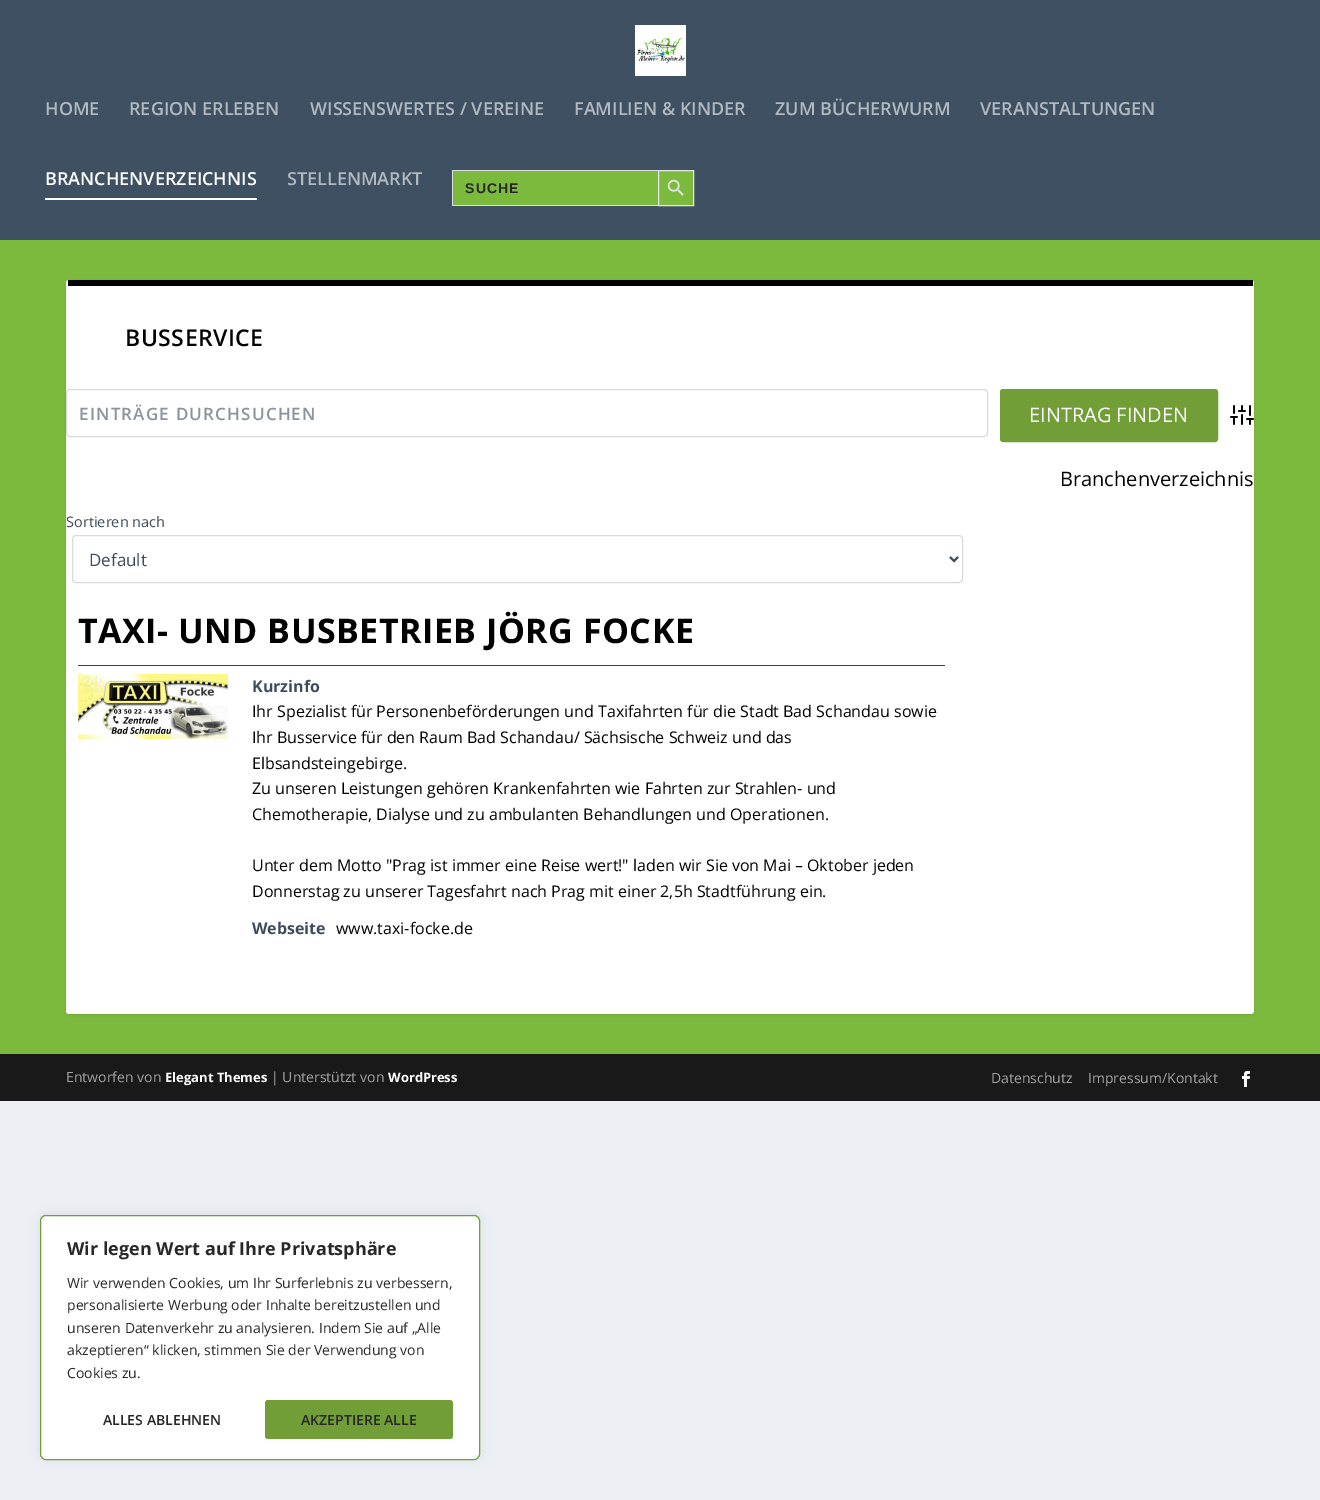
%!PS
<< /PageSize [1320 1500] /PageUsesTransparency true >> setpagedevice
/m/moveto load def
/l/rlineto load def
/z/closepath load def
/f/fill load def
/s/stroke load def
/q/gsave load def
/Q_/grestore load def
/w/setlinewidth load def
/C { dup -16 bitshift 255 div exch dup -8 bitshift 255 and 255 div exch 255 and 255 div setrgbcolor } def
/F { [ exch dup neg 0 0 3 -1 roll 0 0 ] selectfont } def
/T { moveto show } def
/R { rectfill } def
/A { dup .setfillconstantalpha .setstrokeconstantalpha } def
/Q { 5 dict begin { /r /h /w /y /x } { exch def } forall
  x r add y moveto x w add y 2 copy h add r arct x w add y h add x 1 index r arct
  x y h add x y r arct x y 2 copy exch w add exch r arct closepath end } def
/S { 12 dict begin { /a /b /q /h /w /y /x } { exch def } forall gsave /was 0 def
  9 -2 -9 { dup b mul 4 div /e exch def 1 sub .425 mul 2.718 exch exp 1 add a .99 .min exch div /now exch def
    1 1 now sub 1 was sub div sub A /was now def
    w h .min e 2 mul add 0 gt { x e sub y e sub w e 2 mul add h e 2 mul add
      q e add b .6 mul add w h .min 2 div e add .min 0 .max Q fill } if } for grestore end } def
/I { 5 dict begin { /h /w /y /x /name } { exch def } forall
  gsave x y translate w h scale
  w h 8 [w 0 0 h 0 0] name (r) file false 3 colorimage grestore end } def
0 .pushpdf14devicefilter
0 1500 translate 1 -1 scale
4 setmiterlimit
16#ECF0F5 C
0 0 1320 1500 R
16#7CBA3D C
0 240 1320 814 R
16#3E5062 C
0 0 1320 240 R
(1.rgb) 635 25 51 51 I
/OpenSans-SemiBold 18 F
16#B2B9C0 C
(HOME) 45 115 T
(REGION ERLEBEN) 129 115 T
(WISSENSWERTES / VEREINE) 310 115 T
(FAMILIEN & KINDER) 574 115 T
(ZUM BÜCHERWURM) 775 115 T
(VERANSTALTUNGEN) 980 115 T
16#FFFFFF C
(BRANCHENVERZEICHNIS) 45 185 T
45 198 212 2 R
16#B2B9C0 C
(STELLENMARKT) 287 185 T
16#7CBA3D C
453 171 205 34 R
16#DDDDDD C
452 170 206 1 R
452 205 206 1 R
452 170 1 36 R
/LiberationSans-Bold 14 F
16#282828 C
465 193 m 1.2 0 (SUCHE) ashow
16#7CBA3D C
658.5 170.5 m 35 0 l 0 35 l -35 0 l z q f Q_
16#E5E5E5 C
s
(2.rgb) 667 179 17 17 I
16#000000 C
66 281 1188 734 3 1.5 .1 S
16#FFFFFF C
66 280 1188 734 3 Q f
16#000000 C
68 280 1185 6 R
/OpenSans-SemiBold 23 F
125 346 m .5 0 (BUSSERVICE) ashow
16#D9DBDE C
66.5 389.5 921 47 3.5 Q s
/OpenSans-SemiBold 17 F
16#8C939D C
79 420 m 1.2 0 (EINTRÄGE DURCHSUCHEN) ashow
16#719E37 C
1000.5 389.5 217 52 2.5 Q q f Q_
s
/OpenSans-Regular 20 F
16#FFFFFF C
(EINTRAG FINDEN) 1029 422 T
(3.rgb) 1230 405 24 20 I
16#000000 C
(Branchenverzeichnis) 1060 486 T
/OpenSans-Regular 14.5 F
16#3F4B5B C
(Sortieren nach) 66 527 T
16#D9DBDE C
72.5 535.5 890 47 3.5 Q s
16#3F4B5B C
2 w
950 557 m 4 4 l 4 -4 l s
/OpenSans-Regular 17 F
(Default) 89 566 T
16#044F8D C
78 665 867 1 R
/OpenSans-Bold 34 F
16#000000 C
78 643 m .5 0 (TAXI- UND BUSBETRIEB JÖRG FOCKE) ashow
(4.rgb) 78 674 150 65 I
/OpenSans-Bold 16 F
16#3F4B5B C
(Kurzinfo) 252 692 T
/OpenSans-Regular 16 F
16#000000 C
(Ihr Spezialist für Personenbeförderungen und Taxifahrten für die Stadt Bad Schandau sowie) 252 717 T
(Ihr Busservice für den Raum Bad Schandau/ Sächsische Schweiz und das) 252 743 T
(Elbsandsteingebirge.) 252 769 T
(Zu unseren Leistungen gehören Krankenfahrten wie Fahrten zur Strahlen- und) 252 794 T
(Chemotherapie, Dialyse und zu ambulanten Behandlungen und Operationen.) 252 820 T
(Unter dem Motto "Prag ist immer eine Reise wert!" laden wir Sie von Mai – Oktober jeden) 252 871 T
(Donnerstag zu unserer Tagesfahrt nach Prag mit einer 2,5h Stadtführung ein.) 252 897 T
/OpenSans-Bold 16 F
16#3F4B5B C
(Webseite) 252 934 T
/OpenSans-Regular 16 F
16#000000 C
(www.taxi-focke.de) 336 934 T
16#191919 C
0 1054 1320 47 R
/OpenSans-Regular 14 F
16#A3A3A3 C
(Entworfen von) 66 1082 T
/OpenSans-Bold 13 F
16#FFFFFF C
(Elegant Themes) 165 1082 T
/OpenSans-Regular 14 F
16#A3A3A3 C
(| Unterstützt von) 271 1082 T
/OpenSans-Bold 13 F
16#FFFFFF C
(WordPress) 388 1082 T
/OpenSans-Regular 14 F
16#A3A3A3 C
(Datenschutz) 991 1083 T
(Impressum/Kontakt) 1088 1083 T
(5.rgb) 1242 1071 8 16 I
16#ACABAB C
40 1214 440 245 6 5 .3 S
16#FFFFFF C
40.5 1215.5 439 244 5.5 Q q f Q_
16#719E37 C
1 w
s
/OpenSans-Bold 18 F
16#282828 C
(Wir legen Wert auf Ihre Privatsphäre) 67 1255 T
/OpenSans-Regular 14 F
(Wir verwenden Cookies, um Ihr Surferlebnis zu verbessern,) 67 1288 T
(personalisierte Werbung oder Inhalte bereitzustellen und) 67 1310 T
(unseren Datenverkehr zu analysieren. Indem Sie auf „Alle) 67 1333 T
(akzeptieren“ klicken, stimmen Sie der Verwendung von) 67 1355 T
(Cookies zu.) 67 1378 T
/OpenSans-SemiBold 14 F
(ALLES ABLEHNEN) 103 1425 T
16#719E37 C
265 1400 188 39 3 Q f
16#282828 C
(AKZEPTIERE ALLE) 301 1425 T
.poppdf14devicefilter showpage
